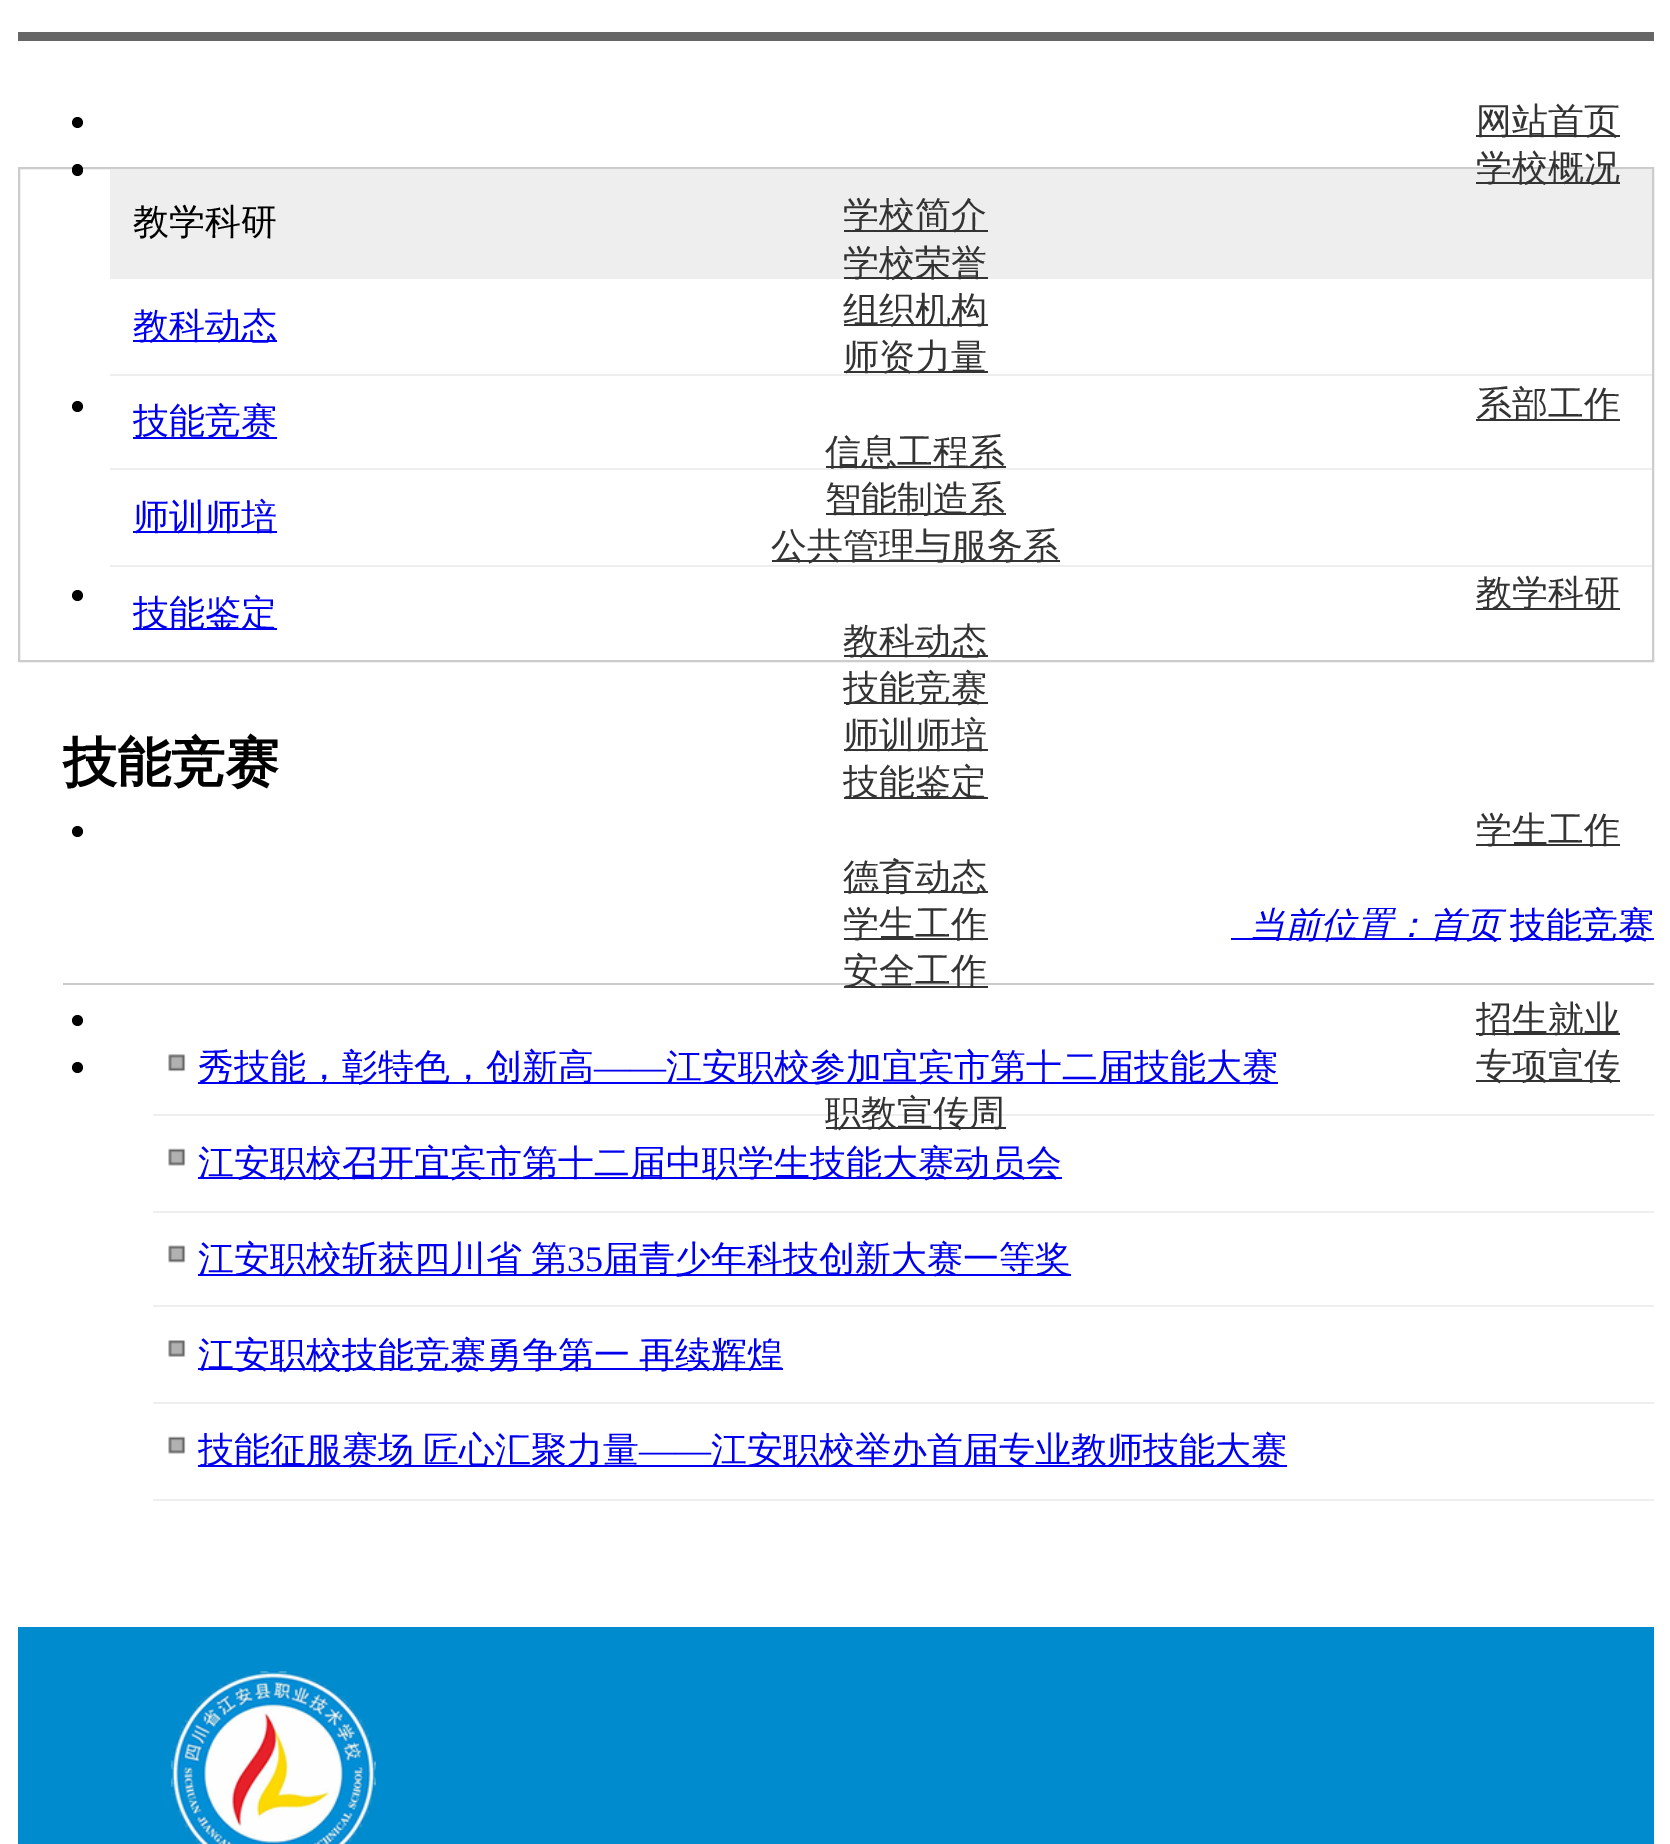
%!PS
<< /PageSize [1670 1844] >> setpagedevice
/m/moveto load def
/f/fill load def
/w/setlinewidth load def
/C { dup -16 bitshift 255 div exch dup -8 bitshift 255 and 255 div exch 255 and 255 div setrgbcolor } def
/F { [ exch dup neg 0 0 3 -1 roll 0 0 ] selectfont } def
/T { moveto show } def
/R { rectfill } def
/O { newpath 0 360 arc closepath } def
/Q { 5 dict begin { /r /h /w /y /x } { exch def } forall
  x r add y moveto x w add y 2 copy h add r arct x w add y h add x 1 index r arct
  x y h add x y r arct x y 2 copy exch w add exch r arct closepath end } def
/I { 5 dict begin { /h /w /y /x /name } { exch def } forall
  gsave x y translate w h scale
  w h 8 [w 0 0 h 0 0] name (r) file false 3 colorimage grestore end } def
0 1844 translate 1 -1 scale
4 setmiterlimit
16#FFFFFF C
0 0 1670 1844 R
16#000000 C
77.5 122.5 5.5 O f
16#333333 C
1476 135 144 2 R
/WenQuanYiZenHei-Medium 36 F
(网站首页) 1476 133 T
16#CCCCCC C
2 w
19 168 1634 493 rectstroke
16#000000 C
72 164 11 12 5.5 Q f
16#EEEEEE C
110 169 1542 110 R
16#333333 C
1476 182 144 2 R
(学校概况) 1476 180 T
844 230 144 2 R
(学校简介) 843 227 T
844 277 144 2 R
(学校荣誉) 843 275 T
844 324 144 2 R
(组织机构) 843 322 T
844 371 144 2 R
(师资力量) 843 369 T
16#000000 C
77.5 406.5 5.5 O f
16#333333 C
1476 419 144 2 R
(系部工作) 1476 416 T
826 466 180 2 R
16#EEEEEE C
110 468 1542 2 R
16#333333 C
(信息工程系) 825 464 T
826 513 180 2 R
(智能制造系) 825 511 T
772 560 288 2 R
(公共管理与服务系) 771 558 T
16#000000 C
77.5 595.5 5.5 O f
16#333333 C
1476 608 144 2 R
(教学科研) 1476 605 T
844 655 144 2 R
(教科动态) 843 653 T
844 702 144 2 R
(技能竞赛) 843 700 T
844 749 144 2 R
(师训师培) 843 747 T
844 797 144 2 R
(技能鉴定) 843 794 T
16#000000 C
77.5 831.5 5.5 O f
16#333333 C
1476 844 144 2 R
(学生工作) 1476 842 T
844 891 144 2 R
(德育动态) 843 889 T
844 938 144 2 R
(学生工作) 843 936 T
844 986 144 2 R
16#CCCCCC C
63 983 1591 2 R
16#333333 C
(安全工作) 843 983 T
16#000000 C
77.5 1020.5 5.5 O f
16#333333 C
1476 1033 144 2 R
(招生就业) 1476 1031 T
16#000000 C
77.5 1067.5 5.5 O f
16#333333 C
1476 1080 144 2 R
(专项宣传) 1476 1078 T
826 1127 180 2 R
16#EEEEEE C
153 1114 1501 2 R
16#333333 C
(职教宣传周) 825 1125 T
16#666666 C
18 32 1636 9 R
16#000000 C
(教学科研) 133 234 T
16#0000EE C
133 340 144 2 R
(教科动态) 133 338 T
16#EEEEEE C
110 374 1542 2 R
16#0000EE C
133 437 144 2 R
(技能竞赛) 133 433 T
133 531 144 2 R
(师训师培) 133 529 T
16#EEEEEE C
110 565 1542 2 R
16#0000EE C
133 628 144 2 R
(技能鉴定) 133 625 T
/WenQuanYiZenHei-Bold 54 F
16#000000 C
(技能竞赛) 63 781 T
16#0000EE C
1231 938 270 2 R
/WenQuanYiZenHei-MediumItalic 36 F
(当前位置：首页) 1249 937 T
1510 938 144 2 R
/WenQuanYiZenHei-Medium 36 F
(技能竞赛) 1510 937 T
(1.rgb) 168 1054 18 18 I
198 1082 1080 2 R
(秀技能，彰特色，创新高) 198 1079 T
/LiberationSerif-Regular 36 F
(——) 594 1079 T
/WenQuanYiZenHei-Medium 36 F
(江安职校参加宜宾市第十二届技能大赛) 666 1079 T
(2.rgb) 168 1148 18 18 I
16#EEEEEE C
153 1211 1501 2 R
16#0000EE C
198 1177 864 2 R
(江安职校召开宜宾市第十二届中职学生技能大赛动员会) 198 1175 T
(3.rgb) 168 1245 18 18 I
16#EEEEEE C
153 1305 1501 2 R
16#0000EE C
198 1274 873 2 R
198 1271 m -2 0 32 (江安职校斩获四川省 第) widthshow
/LiberationSerif-Regular 36 F
(35) 567 1271 T
/WenQuanYiZenHei-Medium 36 F
(届青少年科技创新大赛一等奖) 603 1271 T
(4.rgb) 168 1340 18 17 I
16#EEEEEE C
153 1402 1501 2 R
16#0000EE C
198 1368 585 2 R
198 1367 m -2 0 32 (江安职校技能竞赛勇争第一 再续辉煌) widthshow
(2.rgb) 168 1436 18 18 I
16#EEEEEE C
153 1499 1501 2 R
16#0000EE C
198 1465 1089 2 R
198 1462 m -2 0 32 (技能征服赛场 匠心汇聚力量) widthshow
/LiberationSerif-Regular 36 F
(——) 639 1462 T
/WenQuanYiZenHei-Medium 36 F
(江安职校举办首届专业教师技能大赛) 711 1462 T
16#008BCE C
18 1627 1636 217 R
(5.rgb) 170 1671 206 173 I
showpage
